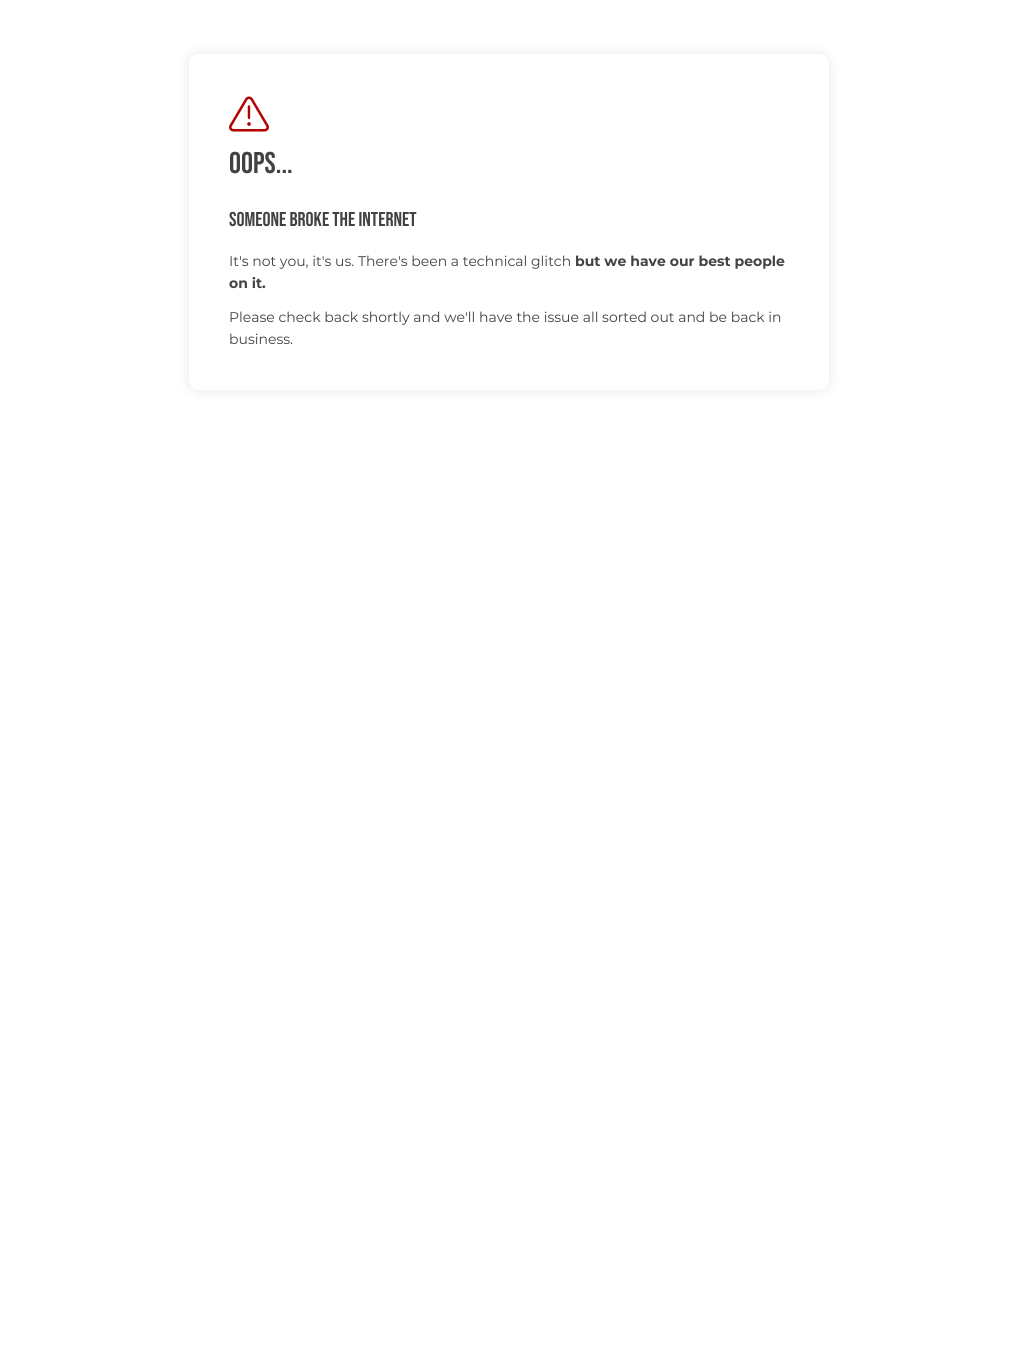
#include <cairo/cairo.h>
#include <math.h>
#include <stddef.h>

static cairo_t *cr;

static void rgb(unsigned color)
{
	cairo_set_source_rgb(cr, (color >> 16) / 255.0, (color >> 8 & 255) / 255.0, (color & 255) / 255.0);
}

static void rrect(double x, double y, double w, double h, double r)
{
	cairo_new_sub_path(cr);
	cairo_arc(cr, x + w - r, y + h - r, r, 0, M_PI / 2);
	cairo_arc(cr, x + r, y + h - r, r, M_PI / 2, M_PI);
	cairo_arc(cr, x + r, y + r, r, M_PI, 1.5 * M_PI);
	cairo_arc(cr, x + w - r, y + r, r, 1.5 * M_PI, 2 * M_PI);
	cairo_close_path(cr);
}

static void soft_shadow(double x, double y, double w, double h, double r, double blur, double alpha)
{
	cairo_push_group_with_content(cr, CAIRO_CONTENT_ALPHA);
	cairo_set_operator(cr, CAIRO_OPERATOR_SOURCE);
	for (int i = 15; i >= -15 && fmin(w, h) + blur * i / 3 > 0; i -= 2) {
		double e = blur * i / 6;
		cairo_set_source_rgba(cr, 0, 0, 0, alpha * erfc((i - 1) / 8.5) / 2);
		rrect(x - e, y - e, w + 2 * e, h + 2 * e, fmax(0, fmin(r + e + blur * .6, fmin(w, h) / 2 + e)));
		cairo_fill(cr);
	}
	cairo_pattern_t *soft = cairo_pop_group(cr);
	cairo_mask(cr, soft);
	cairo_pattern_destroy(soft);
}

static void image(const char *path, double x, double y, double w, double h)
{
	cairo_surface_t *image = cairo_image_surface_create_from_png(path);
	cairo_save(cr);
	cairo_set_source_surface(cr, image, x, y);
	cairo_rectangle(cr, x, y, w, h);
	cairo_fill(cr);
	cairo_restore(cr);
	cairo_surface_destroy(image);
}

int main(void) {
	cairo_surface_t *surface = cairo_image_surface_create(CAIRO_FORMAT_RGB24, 1018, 1353);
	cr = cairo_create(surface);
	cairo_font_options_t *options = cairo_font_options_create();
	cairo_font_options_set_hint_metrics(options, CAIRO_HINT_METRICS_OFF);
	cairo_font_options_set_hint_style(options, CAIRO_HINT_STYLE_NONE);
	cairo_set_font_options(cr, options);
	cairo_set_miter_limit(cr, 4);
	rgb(0xffffff);
	cairo_paint(cr);
	rgb(0x000000);
	soft_shadow(189, 54, 640, 336, 10, 6, 0.1);
	rgb(0xffffff);
	rrect(189, 54, 640, 336, 10);
	cairo_fill(cr);
	image("img/1.png", 229, 96, 40, 36);
	cairo_select_font_face(cr, "Bebas Neue", CAIRO_FONT_SLANT_NORMAL, CAIRO_FONT_WEIGHT_NORMAL);
	cairo_set_font_size(cr, 30);
	rgb(0x424242);
	cairo_move_to(cr, 229, 173);
	cairo_show_text(cr, "Oops...");
	cairo_set_font_size(cr, 20);
	cairo_move_to(cr, 229, 226);
	cairo_show_text(cr, "Someone broke the internet");
	cairo_select_font_face(cr, "Montserrat", CAIRO_FONT_SLANT_NORMAL, CAIRO_FONT_WEIGHT_NORMAL);
	cairo_set_font_size(cr, 14);
	cairo_move_to(cr, 229, 266);
	cairo_show_text(cr, "It's not you, it's us. There's been a technical glitch");
	cairo_select_font_face(cr, "Montserrat", CAIRO_FONT_SLANT_NORMAL, CAIRO_FONT_WEIGHT_BOLD);
	cairo_move_to(cr, 575, 266);
	cairo_show_text(cr, "but we have our best people");
	cairo_move_to(cr, 229, 288);
	cairo_show_text(cr, "on it.");
	cairo_select_font_face(cr, "Montserrat", CAIRO_FONT_SLANT_NORMAL, CAIRO_FONT_WEIGHT_NORMAL);
	cairo_move_to(cr, 229, 322);
	cairo_show_text(cr, "Please check back shortly and we'll have the issue all sorted out and be back in");
	cairo_move_to(cr, 229, 344);
	cairo_show_text(cr, "business.");
	cairo_surface_write_to_png(surface, "page.png");
	cairo_font_options_destroy(options);
	cairo_destroy(cr);
	cairo_surface_destroy(surface);
	return 0;
}
